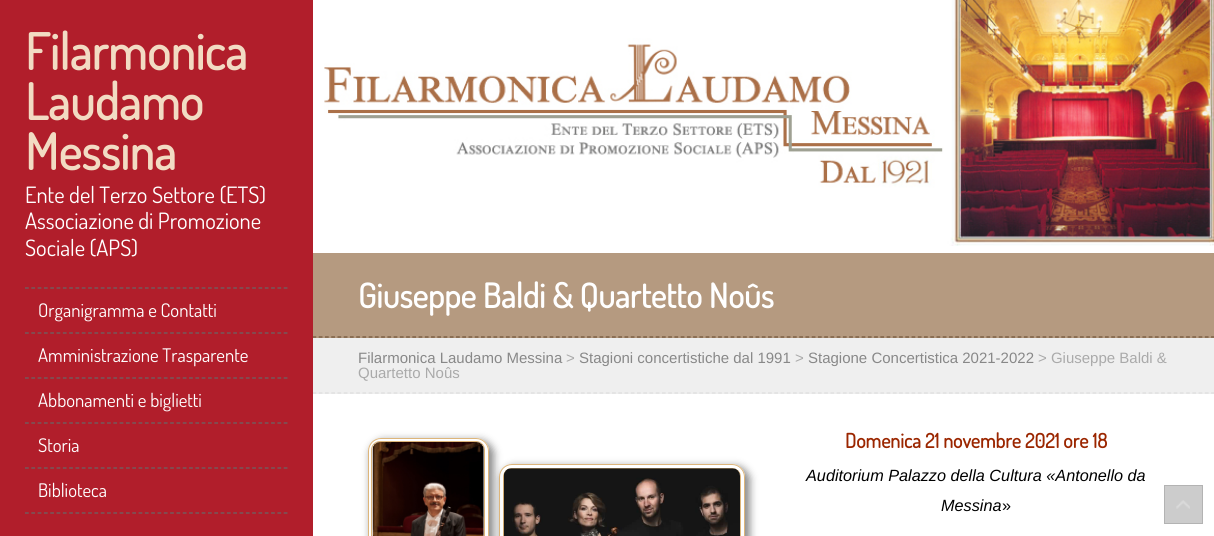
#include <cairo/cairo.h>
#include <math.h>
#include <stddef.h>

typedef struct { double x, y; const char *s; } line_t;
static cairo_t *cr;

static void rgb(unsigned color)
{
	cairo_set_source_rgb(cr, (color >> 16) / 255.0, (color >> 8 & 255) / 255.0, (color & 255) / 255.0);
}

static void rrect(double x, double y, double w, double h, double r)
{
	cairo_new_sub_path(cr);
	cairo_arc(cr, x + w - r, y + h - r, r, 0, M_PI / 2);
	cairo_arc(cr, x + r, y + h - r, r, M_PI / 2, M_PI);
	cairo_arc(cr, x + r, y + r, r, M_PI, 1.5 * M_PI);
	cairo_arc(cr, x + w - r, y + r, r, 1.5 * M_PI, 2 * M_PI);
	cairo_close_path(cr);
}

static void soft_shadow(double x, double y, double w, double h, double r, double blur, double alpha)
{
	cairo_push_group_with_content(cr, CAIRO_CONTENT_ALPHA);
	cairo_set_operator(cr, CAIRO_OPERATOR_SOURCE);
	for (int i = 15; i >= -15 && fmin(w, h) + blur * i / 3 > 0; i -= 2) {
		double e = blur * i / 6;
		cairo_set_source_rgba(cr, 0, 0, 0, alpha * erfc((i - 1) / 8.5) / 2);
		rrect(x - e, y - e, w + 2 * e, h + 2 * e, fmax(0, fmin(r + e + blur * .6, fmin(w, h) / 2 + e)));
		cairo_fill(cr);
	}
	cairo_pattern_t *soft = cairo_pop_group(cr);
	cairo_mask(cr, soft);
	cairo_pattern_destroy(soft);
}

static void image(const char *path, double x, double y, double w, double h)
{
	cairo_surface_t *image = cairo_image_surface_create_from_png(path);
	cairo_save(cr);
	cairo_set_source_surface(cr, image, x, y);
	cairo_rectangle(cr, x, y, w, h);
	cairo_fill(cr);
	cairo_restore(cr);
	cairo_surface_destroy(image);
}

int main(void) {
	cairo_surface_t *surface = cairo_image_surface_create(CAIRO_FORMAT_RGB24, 1214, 536);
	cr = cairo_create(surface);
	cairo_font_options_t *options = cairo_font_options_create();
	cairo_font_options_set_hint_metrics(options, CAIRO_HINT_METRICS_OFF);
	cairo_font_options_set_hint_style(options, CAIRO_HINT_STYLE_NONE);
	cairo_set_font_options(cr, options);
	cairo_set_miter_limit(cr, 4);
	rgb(0xffffff);
	cairo_paint(cr);
	rgb(0xb59a80);
	cairo_rectangle(cr, 313, 253, 901, 85);
	cairo_fill(cr);
	cairo_new_path(cr);
	cairo_move_to(cr, 312.5, 337);
	cairo_line_to(cr, 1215, 337);
	rgb(0x6f5236);
	cairo_set_line_width(cr, 1.2);
	cairo_set_dash(cr, (double[]){3.75, 2.49}, 2, 0);
	cairo_stroke(cr);
	rgb(0xefefef);
	cairo_rectangle(cr, 313, 338, 901, 56);
	cairo_fill(cr);
	cairo_new_path(cr);
	cairo_move_to(cr, 312.5, 393);
	cairo_line_to(cr, 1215, 393);
	rgb(0xdddddd);
	cairo_stroke(cr);
	rgb(0xb11e2b);
	cairo_rectangle(cr, 0, 0, 313, 536);
	cairo_fill(cr);
	cairo_new_path(cr);
	cairo_move_to(cr, 25, 288);
	cairo_line_to(cr, 287.5, 288);
	rgb(0x666666);
	cairo_set_dash(cr, (double[]){3.75, 2.56}, 2, 0);
	cairo_stroke(cr);
	cairo_new_path(cr);
	cairo_move_to(cr, 25, 333);
	cairo_line_to(cr, 287.5, 333);
	cairo_stroke(cr);
	cairo_new_path(cr);
	cairo_move_to(cr, 25, 378);
	cairo_line_to(cr, 287.5, 378);
	cairo_stroke(cr);
	cairo_new_path(cr);
	cairo_move_to(cr, 25, 423);
	cairo_line_to(cr, 287.5, 423);
	cairo_stroke(cr);
	cairo_new_path(cr);
	cairo_move_to(cr, 25, 468);
	cairo_line_to(cr, 287.5, 468);
	cairo_stroke(cr);
	cairo_new_path(cr);
	cairo_move_to(cr, 25, 513);
	cairo_line_to(cr, 287.5, 513);
	cairo_stroke(cr);
	image("img/1.png", 324, 0, 890, 246);
	cairo_save(cr);
	cairo_set_fill_rule(cr, CAIRO_FILL_RULE_EVEN_ODD);
	cairo_new_path(cr);
	cairo_move_to(cr, 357, 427);
	cairo_line_to(cr, 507, 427);
	cairo_line_to(cr, 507, 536);
	cairo_line_to(cr, 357, 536);
	cairo_close_path(cr);
	cairo_move_to(cr, 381, 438);
	cairo_line_to(cr, 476, 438);
	cairo_curve_to(cr, 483, 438, 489, 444, 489, 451);
	cairo_line_to(cr, 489, 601);
	cairo_curve_to(cr, 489, 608, 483, 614, 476, 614);
	cairo_line_to(cr, 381, 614);
	cairo_curve_to(cr, 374, 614, 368, 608, 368, 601);
	cairo_line_to(cr, 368, 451);
	cairo_curve_to(cr, 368, 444, 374, 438, 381, 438);
	cairo_close_path(cr);
	cairo_clip(cr);
	rgb(0x8c8c8c);
	soft_shadow(370, 440, 124, 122, 14, 4, 1);
	cairo_restore(cr);
	rrect(368.5, 438.5, 120, 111, 12.5);
	rgb(0xddb57a);
	cairo_set_line_width(cr, 1);
	cairo_set_dash(cr, NULL, 0, 0);
	cairo_stroke(cr);
	rrect(371.5, 441.5, 113, 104, 8.5);
	cairo_stroke(cr);
	image("img/2.png", 372, 442, 112, 94);
	cairo_save(cr);
	cairo_set_fill_rule(cr, CAIRO_FILL_RULE_EVEN_ODD);
	cairo_new_path(cr);
	cairo_move_to(cr, 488, 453);
	cairo_line_to(cr, 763, 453);
	cairo_line_to(cr, 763, 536);
	cairo_line_to(cr, 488, 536);
	cairo_close_path(cr);
	cairo_move_to(cr, 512, 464);
	cairo_line_to(cr, 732, 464);
	cairo_curve_to(cr, 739, 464, 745, 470, 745, 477);
	cairo_line_to(cr, 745, 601);
	cairo_curve_to(cr, 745, 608, 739, 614, 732, 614);
	cairo_line_to(cr, 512, 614);
	cairo_curve_to(cr, 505, 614, 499, 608, 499, 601);
	cairo_line_to(cr, 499, 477);
	cairo_curve_to(cr, 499, 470, 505, 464, 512, 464);
	cairo_close_path(cr);
	cairo_clip(cr);
	rgb(0x8c8c8c);
	soft_shadow(501, 466, 249, 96, 14, 4, 1);
	cairo_restore(cr);
	rrect(499.5, 464.5, 245, 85, 12.5);
	cairo_stroke(cr);
	rrect(503.5, 468.5, 237, 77, 8.5);
	cairo_stroke(cr);
	image("img/3.png", 503, 468, 237, 68);
	rgb(0xcccccc);
	cairo_rectangle(cr, 1165, 486, 37, 37);
	cairo_fill(cr);
	image("img/4.png", 1176, 500, 14, 9);
	cairo_rectangle(cr, 1164.5, 485.5, 38, 38);
	rgb(0xb3b3b3);
	cairo_stroke(cr);
	cairo_select_font_face(cr, "Dosis", CAIRO_FONT_SLANT_NORMAL, CAIRO_FONT_WEIGHT_BOLD);
	cairo_set_font_size(cr, 50);
	rgb(0xf2dbc3);
	{
		static const line_t items[] = {
			{25, 70, "Filarmonica"},
			{25, 120, "Laudamo"},
			{25, 170, "Messina"},
		};
		for (size_t i = 0; i < sizeof items / sizeof *items; i++) {
			cairo_move_to(cr, items[i].x, items[i].y);
			cairo_show_text(cr, items[i].s);
		}
	}
	cairo_select_font_face(cr, "Dosis", CAIRO_FONT_SLANT_NORMAL, CAIRO_FONT_WEIGHT_NORMAL);
	cairo_set_font_size(cr, 22.5);
	rgb(0xffffff);
	{
		static const line_t items[] = {
			{25, 203, "Ente del Terzo Settore (ETS)"},
			{25, 229, "Associazione di Promozione"},
			{25, 256, "Sociale (APS)"},
		};
		for (size_t i = 0; i < sizeof items / sizeof *items; i++) {
			cairo_move_to(cr, items[i].x, items[i].y);
			cairo_show_text(cr, items[i].s);
		}
	}
	cairo_set_font_size(cr, 18.75);
	{
		static const line_t items[] = {
			{38, 317, "Organigramma e Contatti"},
			{38, 362, "Amministrazione Trasparente"},
			{38, 407, "Abbonamenti e biglietti"},
			{38, 452, "Storia"},
			{38, 497, "Biblioteca"},
		};
		for (size_t i = 0; i < sizeof items / sizeof *items; i++) {
			cairo_move_to(cr, items[i].x, items[i].y);
			cairo_show_text(cr, items[i].s);
		}
	}
	cairo_select_font_face(cr, "Dosis", CAIRO_FONT_SLANT_NORMAL, CAIRO_FONT_WEIGHT_BOLD);
	cairo_set_font_size(cr, 33.75);
	cairo_move_to(cr, 358, 308);
	cairo_show_text(cr, "Giuseppe Baldi & Quartetto Noûs");
	cairo_select_font_face(cr, "Liberation Sans", CAIRO_FONT_SLANT_NORMAL, CAIRO_FONT_WEIGHT_NORMAL);
	cairo_set_font_size(cr, 15);
	rgb(0x888888);
	cairo_move_to(cr, 358, 363);
	cairo_show_text(cr, "Filarmonica Laudamo Messina");
	rgb(0xaaaaaa);
	cairo_move_to(cr, 566, 363);
	cairo_show_text(cr, ">");
	rgb(0x888888);
	cairo_move_to(cr, 579, 363);
	cairo_show_text(cr, "Stagioni concertistiche dal 1991");
	rgb(0xaaaaaa);
	cairo_move_to(cr, 795, 363);
	cairo_show_text(cr, ">");
	rgb(0x888888);
	cairo_move_to(cr, 808, 363);
	cairo_show_text(cr, "Stagione Concertistica 2021-2022");
	rgb(0xaaaaaa);
	cairo_move_to(cr, 1038, 363);
	cairo_show_text(cr, "> Giuseppe Baldi &");
	cairo_move_to(cr, 358, 378);
	cairo_show_text(cr, "Quartetto Noûs");
	cairo_select_font_face(cr, "Dosis", CAIRO_FONT_SLANT_NORMAL, CAIRO_FONT_WEIGHT_BOLD);
	cairo_set_font_size(cr, 20);
	rgb(0x9b2600);
	cairo_move_to(cr, 845, 448);
	cairo_show_text(cr, "Domenica 21 novembre 2021 ore 18");
	cairo_select_font_face(cr, "Liberation Sans", CAIRO_FONT_SLANT_ITALIC, CAIRO_FONT_WEIGHT_NORMAL);
	cairo_set_font_size(cr, 16.25);
	rgb(0x000000);
	cairo_move_to(cr, 806, 481);
	cairo_show_text(cr, "Auditorium Palazzo della Cultura «Antonello da");
	cairo_move_to(cr, 941, 511);
	cairo_show_text(cr, "Messina");
	cairo_select_font_face(cr, "Liberation Sans", CAIRO_FONT_SLANT_NORMAL, CAIRO_FONT_WEIGHT_NORMAL);
	cairo_move_to(cr, 1002, 511);
	cairo_show_text(cr, "»");
	cairo_surface_write_to_png(surface, "page.png");
	cairo_font_options_destroy(options);
	cairo_destroy(cr);
	cairo_surface_destroy(surface);
	return 0;
}
